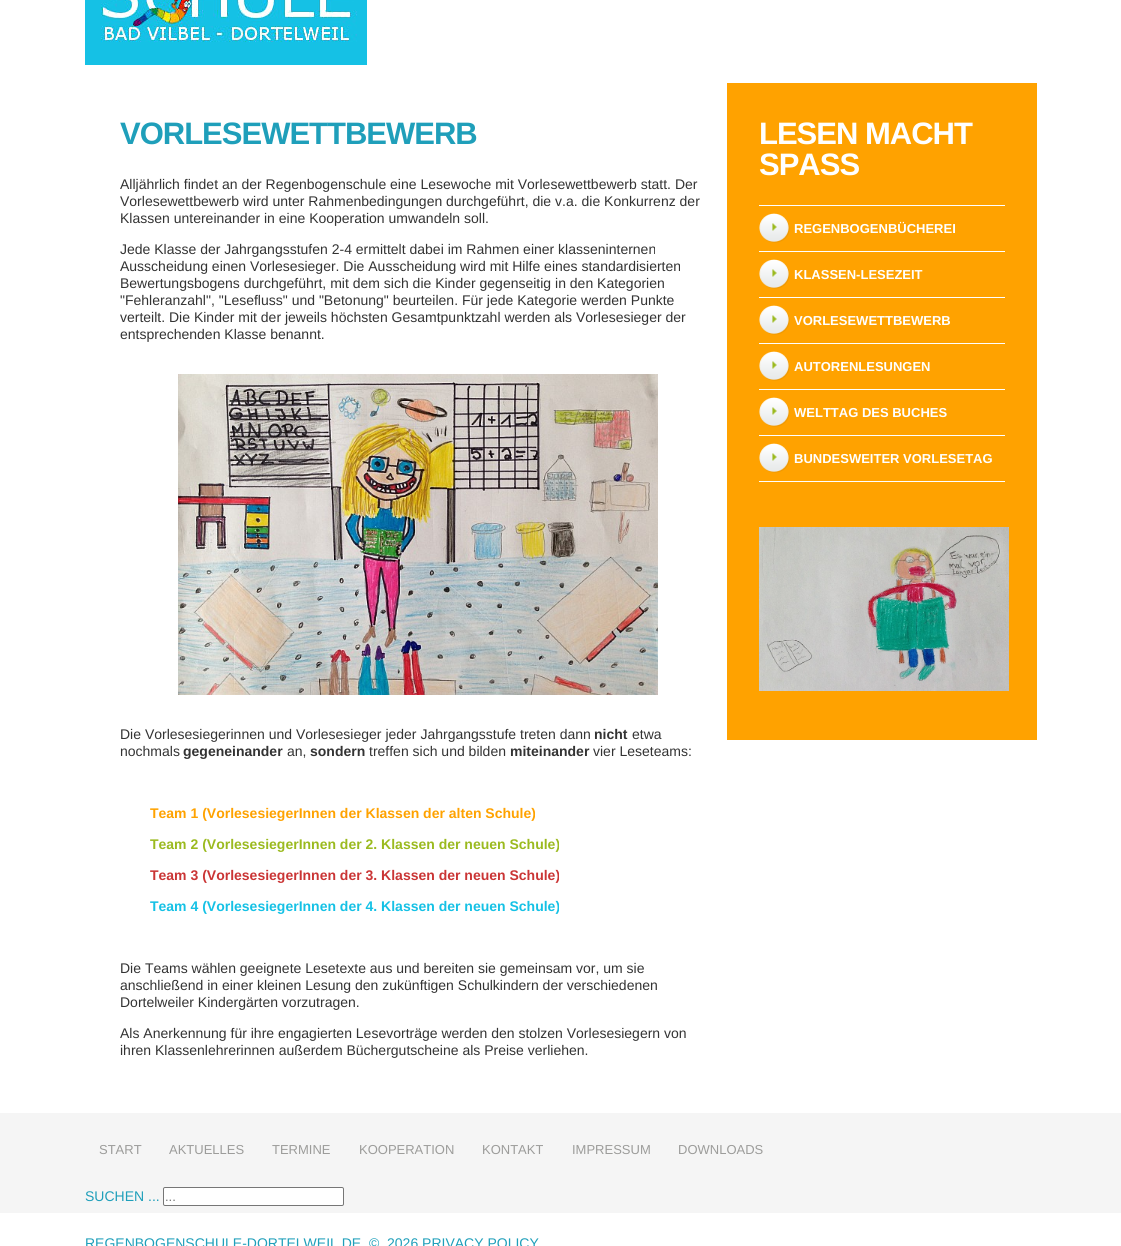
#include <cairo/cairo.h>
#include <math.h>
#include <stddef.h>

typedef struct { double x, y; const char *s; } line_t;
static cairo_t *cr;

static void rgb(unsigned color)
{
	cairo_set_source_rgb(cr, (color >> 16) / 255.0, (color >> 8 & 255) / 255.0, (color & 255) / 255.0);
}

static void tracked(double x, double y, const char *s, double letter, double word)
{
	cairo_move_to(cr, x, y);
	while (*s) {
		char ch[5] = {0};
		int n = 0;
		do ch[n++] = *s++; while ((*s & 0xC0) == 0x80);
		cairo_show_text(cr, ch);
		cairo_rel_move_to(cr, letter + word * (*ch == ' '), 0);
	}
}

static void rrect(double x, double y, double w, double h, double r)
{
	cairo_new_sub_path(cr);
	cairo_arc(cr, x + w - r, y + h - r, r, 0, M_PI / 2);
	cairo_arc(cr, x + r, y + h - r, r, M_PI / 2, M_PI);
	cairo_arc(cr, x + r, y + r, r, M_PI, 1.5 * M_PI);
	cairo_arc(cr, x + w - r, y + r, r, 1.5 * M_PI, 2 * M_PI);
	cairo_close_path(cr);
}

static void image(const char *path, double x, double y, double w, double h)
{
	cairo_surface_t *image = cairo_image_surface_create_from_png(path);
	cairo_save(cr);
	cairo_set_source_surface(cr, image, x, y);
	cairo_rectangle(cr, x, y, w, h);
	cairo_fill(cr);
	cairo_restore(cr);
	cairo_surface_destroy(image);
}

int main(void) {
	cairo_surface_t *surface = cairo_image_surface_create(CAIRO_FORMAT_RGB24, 1121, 1246);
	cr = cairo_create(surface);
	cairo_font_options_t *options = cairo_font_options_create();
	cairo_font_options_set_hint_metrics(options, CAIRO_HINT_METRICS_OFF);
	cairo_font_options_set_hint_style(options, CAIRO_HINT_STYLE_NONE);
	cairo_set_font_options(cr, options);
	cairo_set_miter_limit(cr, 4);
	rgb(0xffffff);
	cairo_paint(cr);
	image("img/1.png", 85, 0, 282, 65);
	image("img/2.png", 178, 374, 480, 321);
	rgb(0xffa200);
	cairo_rectangle(cr, 727, 83, 310, 657);
	cairo_fill(cr);
	rgb(0xffffff);
	cairo_rectangle(cr, 759, 481, 246, 1);
	cairo_fill(cr);
	image("img/3.png", 759, 213, 31, 30);
	cairo_rectangle(cr, 759, 205, 246, 1);
	cairo_fill(cr);
	image("img/3.png", 759, 259, 31, 30);
	cairo_rectangle(cr, 759, 251, 246, 1);
	cairo_fill(cr);
	image("img/3.png", 759, 305, 31, 30);
	cairo_rectangle(cr, 759, 297, 246, 1);
	cairo_fill(cr);
	image("img/3.png", 759, 351, 31, 30);
	cairo_rectangle(cr, 759, 343, 246, 1);
	cairo_fill(cr);
	image("img/3.png", 759, 397, 31, 30);
	cairo_rectangle(cr, 759, 389, 246, 1);
	cairo_fill(cr);
	image("img/3.png", 759, 443, 31, 30);
	cairo_rectangle(cr, 759, 435, 246, 1);
	cairo_fill(cr);
	image("img/4.png", 759, 527, 250, 164);
	rgb(0xf5f5f5);
	cairo_rectangle(cr, 0, 1113, 1121, 100);
	cairo_fill(cr);
	rgb(0xffffff);
	rrect(163.5, 1187.5, 180, 18, 1.5);
	cairo_fill_preserve(cr);
	rgb(0x767676);
	cairo_set_line_width(cr, 1);
	cairo_stroke(cr);
	cairo_select_font_face(cr, "Liberation Sans", CAIRO_FONT_SLANT_NORMAL, CAIRO_FONT_WEIGHT_BOLD);
	cairo_set_font_size(cr, 31);
	rgb(0x1f9fba);
	tracked(120, 144, "VORLESEWETTBEWERB", -1, 0);
	cairo_select_font_face(cr, "Liberation Sans", CAIRO_FONT_SLANT_NORMAL, CAIRO_FONT_WEIGHT_NORMAL);
	cairo_set_font_size(cr, 14);
	rgb(0x333333);
	{
		static const line_t items[] = {
			{120, 189, "Alljährlich findet an der Regenbogenschule eine Lesewoche mit Vorlesewettbewerb statt. Der"},
			{120, 206, "Vorlesewettbewerb wird unter Rahmenbedingungen durchgeführt, die v.a. die Konkurrenz der"},
			{120, 223, "Klassen untereinander in eine Kooperation umwandeln soll."},
			{120, 254, "Jede Klasse der Jahrgangsstufen 2-4 ermittelt dabei im Rahmen einer klasseninternen"},
			{120, 271, "Ausscheidung einen Vorlesesieger. Die Ausscheidung wird mit Hilfe eines standardisierten"},
			{120, 288, "Bewertungsbogens durchgeführt, mit dem sich die Kinder gegenseitig in den Kategorien"},
			{120, 305, "\"Fehleranzahl\", \"Lesefluss\" und \"Betonung\" beurteilen. Für jede Kategorie werden Punkte"},
			{120, 322, "verteilt. Die Kinder mit der jeweils höchsten Gesamtpunktzahl werden als Vorlesesieger der"},
			{120, 339, "entsprechenden Klasse benannt."},
			{120, 739, "Die Vorlesesiegerinnen und Vorlesesieger jeder Jahrgangsstufe treten dann"},
		};
		for (size_t i = 0; i < sizeof items / sizeof *items; i++) {
			cairo_move_to(cr, items[i].x, items[i].y);
			cairo_show_text(cr, items[i].s);
		}
	}
	cairo_select_font_face(cr, "Liberation Sans", CAIRO_FONT_SLANT_NORMAL, CAIRO_FONT_WEIGHT_BOLD);
	cairo_move_to(cr, 594, 739);
	cairo_show_text(cr, "nicht");
	cairo_select_font_face(cr, "Liberation Sans", CAIRO_FONT_SLANT_NORMAL, CAIRO_FONT_WEIGHT_NORMAL);
	cairo_move_to(cr, 632, 739);
	cairo_show_text(cr, "etwa");
	cairo_move_to(cr, 120, 756);
	cairo_show_text(cr, "nochmals");
	cairo_select_font_face(cr, "Liberation Sans", CAIRO_FONT_SLANT_NORMAL, CAIRO_FONT_WEIGHT_BOLD);
	cairo_move_to(cr, 183, 756);
	cairo_show_text(cr, "gegeneinander");
	cairo_select_font_face(cr, "Liberation Sans", CAIRO_FONT_SLANT_NORMAL, CAIRO_FONT_WEIGHT_NORMAL);
	cairo_move_to(cr, 287, 756);
	cairo_show_text(cr, "an,");
	cairo_select_font_face(cr, "Liberation Sans", CAIRO_FONT_SLANT_NORMAL, CAIRO_FONT_WEIGHT_BOLD);
	cairo_move_to(cr, 310, 756);
	cairo_show_text(cr, "sondern");
	cairo_select_font_face(cr, "Liberation Sans", CAIRO_FONT_SLANT_NORMAL, CAIRO_FONT_WEIGHT_NORMAL);
	cairo_move_to(cr, 369, 756);
	cairo_show_text(cr, "treffen sich und bilden");
	cairo_select_font_face(cr, "Liberation Sans", CAIRO_FONT_SLANT_NORMAL, CAIRO_FONT_WEIGHT_BOLD);
	cairo_move_to(cr, 510, 756);
	cairo_show_text(cr, "miteinander");
	cairo_select_font_face(cr, "Liberation Sans", CAIRO_FONT_SLANT_NORMAL, CAIRO_FONT_WEIGHT_NORMAL);
	cairo_move_to(cr, 593, 756);
	cairo_show_text(cr, "vier Leseteams:");
	cairo_select_font_face(cr, "Liberation Sans", CAIRO_FONT_SLANT_NORMAL, CAIRO_FONT_WEIGHT_BOLD);
	rgb(0xffa200);
	cairo_move_to(cr, 150, 818);
	cairo_show_text(cr, "Team 1 (VorlesesiegerInnen der Klassen der alten Schule)");
	rgb(0x9bba1f);
	cairo_move_to(cr, 150, 849);
	cairo_show_text(cr, "Team 2 (VorlesesiegerInnen der 2. Klassen der neuen Schule)");
	rgb(0xca3535);
	cairo_move_to(cr, 150, 880);
	cairo_show_text(cr, "Team 3 (VorlesesiegerInnen der 3. Klassen der neuen Schule)");
	rgb(0x15c1e5);
	cairo_move_to(cr, 150, 911);
	cairo_show_text(cr, "Team 4 (VorlesesiegerInnen der 4. Klassen der neuen Schule)");
	cairo_select_font_face(cr, "Liberation Sans", CAIRO_FONT_SLANT_NORMAL, CAIRO_FONT_WEIGHT_NORMAL);
	rgb(0x333333);
	{
		static const line_t items[] = {
			{120, 973, "Die Teams wählen geeignete Lesetexte aus und bereiten sie gemeinsam vor, um sie"},
			{120, 990, "anschließend in einer kleinen Lesung den zukünftigen Schulkindern der verschiedenen"},
			{120, 1007, "Dortelweiler Kindergärten vorzutragen."},
			{120, 1038, "Als Anerkennung für ihre engagierten Lesevorträge werden den stolzen Vorlesesiegern von"},
			{120, 1055, "ihren Klassenlehrerinnen außerdem Büchergutscheine als Preise verliehen."},
		};
		for (size_t i = 0; i < sizeof items / sizeof *items; i++) {
			cairo_move_to(cr, items[i].x, items[i].y);
			cairo_show_text(cr, items[i].s);
		}
	}
	cairo_select_font_face(cr, "Liberation Sans", CAIRO_FONT_SLANT_NORMAL, CAIRO_FONT_WEIGHT_BOLD);
	cairo_set_font_size(cr, 31);
	rgb(0xffffff);
	tracked(759, 144, "LESEN MACHT", -1, 0);
	tracked(759, 175, "SPASS", -1, 0);
	cairo_set_font_size(cr, 13);
	{
		static const line_t items[] = {
			{794, 233, "REGENBOGENBÜCHEREI"},
			{794, 279, "KLASSEN-LESEZEIT"},
			{794, 325, "VORLESEWETTBEWERB"},
			{794, 371, "AUTORENLESUNGEN"},
			{794, 417, "WELTTAG DES BUCHES"},
			{794, 463, "BUNDESWEITER VORLESETAG"},
		};
		for (size_t i = 0; i < sizeof items / sizeof *items; i++) {
			cairo_move_to(cr, items[i].x, items[i].y);
			cairo_show_text(cr, items[i].s);
		}
	}
	cairo_select_font_face(cr, "Liberation Sans", CAIRO_FONT_SLANT_NORMAL, CAIRO_FONT_WEIGHT_NORMAL);
	rgb(0x9c9c9a);
	{
		static const line_t items[] = {
			{99, 1154, "START"},
			{169, 1154, "AKTUELLES"},
			{272, 1154, "TERMINE"},
			{359, 1154, "KOOPERATION"},
			{482, 1154, "KONTAKT"},
			{572, 1154, "IMPRESSUM"},
			{678, 1154, "DOWNLOADS"},
		};
		for (size_t i = 0; i < sizeof items / sizeof *items; i++) {
			cairo_move_to(cr, items[i].x, items[i].y);
			cairo_show_text(cr, items[i].s);
		}
	}
	cairo_set_font_size(cr, 14);
	rgb(0x1f9fba);
	cairo_move_to(cr, 85, 1201);
	cairo_show_text(cr, "SUCHEN ...");
	cairo_set_font_size(cr, 13);
	rgb(0x757575);
	cairo_move_to(cr, 165, 1201);
	cairo_show_text(cr, "...");
	cairo_set_font_size(cr, 14);
	rgb(0x1f9fba);
	cairo_move_to(cr, 85, 1248);
	cairo_show_text(cr, "REGENBOGENSCHULE-DORTELWEIL.DE  ©  2026 PRIVACY POLICY");
	cairo_surface_write_to_png(surface, "page.png");
	cairo_font_options_destroy(options);
	cairo_destroy(cr);
	cairo_surface_destroy(surface);
	return 0;
}
